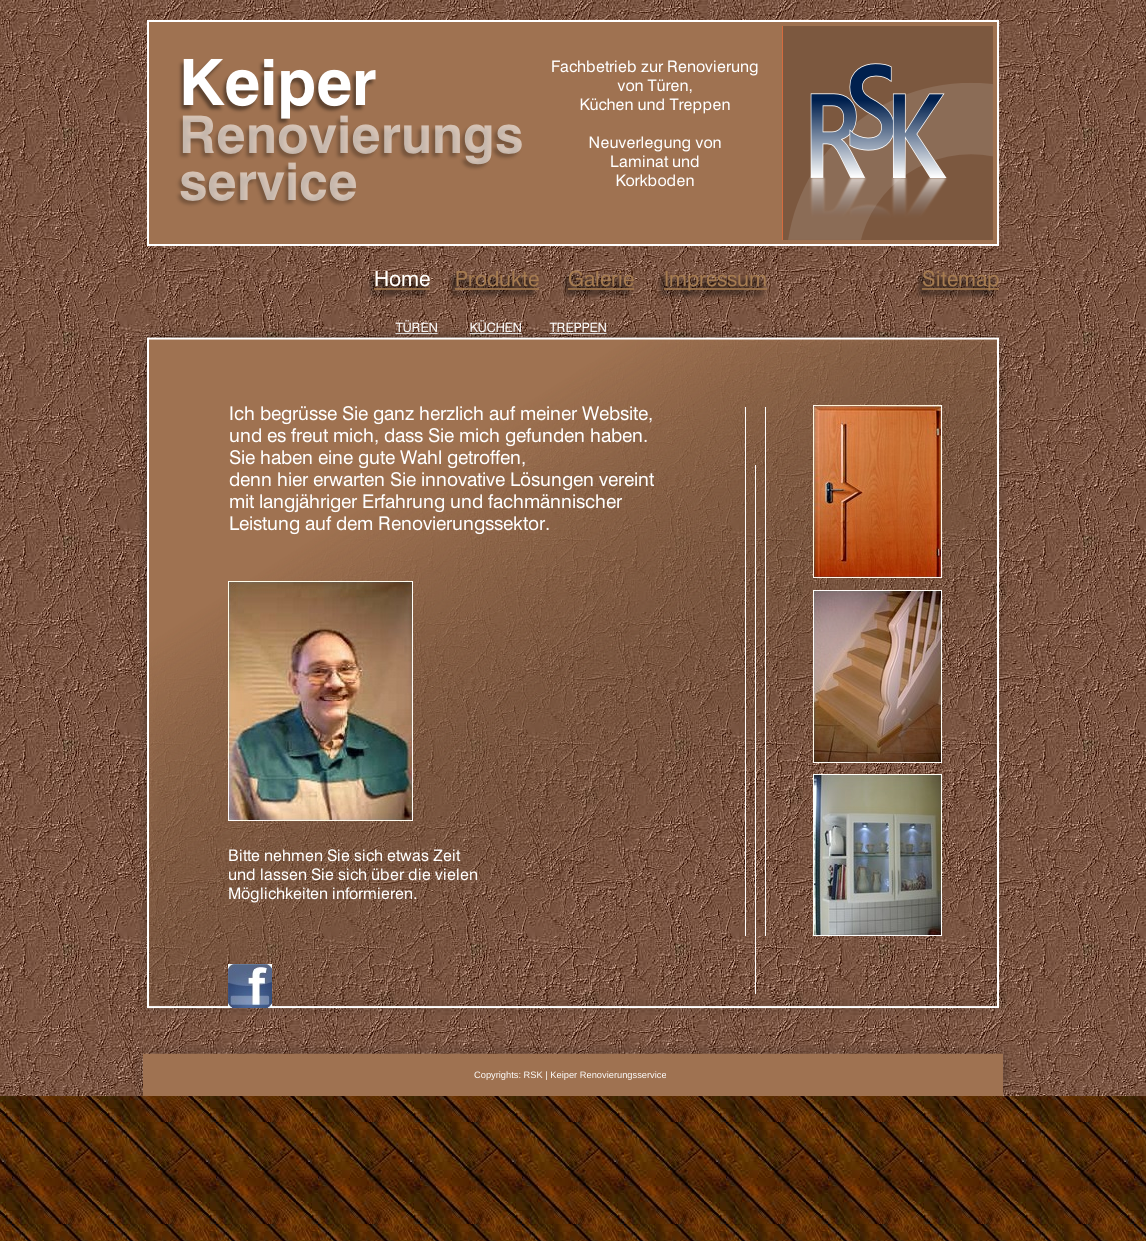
#include <cairo/cairo.h>
#include <math.h>
#include <stddef.h>

typedef struct { double x, y, w, h; unsigned color; } box_t;
static cairo_t *cr;

static void rgb(unsigned color)
{
	cairo_set_source_rgb(cr, (color >> 16) / 255.0, (color >> 8 & 255) / 255.0, (color & 255) / 255.0);
}

static void image(const char *path, double x, double y, double w, double h)
{
	cairo_surface_t *image = cairo_image_surface_create_from_png(path);
	cairo_save(cr);
	cairo_set_source_surface(cr, image, x, y);
	cairo_rectangle(cr, x, y, w, h);
	cairo_fill(cr);
	cairo_restore(cr);
	cairo_surface_destroy(image);
}

int main(void) {
	cairo_surface_t *surface = cairo_image_surface_create(CAIRO_FORMAT_RGB24, 1146, 1241);
	cr = cairo_create(surface);
	cairo_font_options_t *options = cairo_font_options_create();
	cairo_font_options_set_hint_metrics(options, CAIRO_HINT_METRICS_OFF);
	cairo_font_options_set_hint_style(options, CAIRO_HINT_STYLE_NONE);
	cairo_set_font_options(cr, options);
	cairo_set_miter_limit(cr, 4);
	rgb(0xffffff);
	cairo_paint(cr);
	image("img/1.png", 0, 1096, 1146, 145);
	image("img/2.png", 0, 0, 1146, 1096);
	image("img/3.png", 147, 20, 852, 226);
	image("img/4.png", 552, 60, 206, 127);
	image("img/5.png", 788, 63, 205, 177);
	image("img/10.png", 367, 271, 63, 28);
	image("img/6.png", 375, 270, 55, 17);
	image("img/7.png", 449, 270, 90, 29);
	image("img/8.png", 561, 270, 73, 29);
	image("img/9.png", 916, 270, 83, 29);
	image("img/11.png", 658, 271, 109, 28);
	image("img/12.png", 138, 320, 869, 695);
	image("img/13.png", 229, 406, 425, 129);
	{
		static const box_t items[] = {
			{745, 407, 1, 529, 0xffffff},
			{755, 465, 1, 529, 0xffffff},
			{765, 407, 1, 529, 0xffffff},
		};
		for (size_t i = 0; i < sizeof items / sizeof *items; i++) {
			rgb(items[i].color);
			cairo_rectangle(cr, items[i].x, items[i].y, items[i].w, items[i].h);
			cairo_fill(cr);
		}
	}
	image("img/14.png", 813, 405, 129, 173);
	image("img/15.png", 228, 581, 185, 240);
	image("img/16.png", 813, 590, 129, 173);
	image("img/17.png", 229, 849, 249, 54);
	image("img/18.png", 813, 774, 129, 162);
	image("img/19.png", 228, 964, 44, 44);
	image("img/20.png", 135, 1045, 876, 51);
	cairo_select_font_face(cr, "Liberation Sans", CAIRO_FONT_SLANT_NORMAL, CAIRO_FONT_WEIGHT_NORMAL);
	cairo_set_font_size(cr, 9.3);
	cairo_move_to(cr, 474, 1078);
	cairo_show_text(cr, "Copyrights: RSK | Keiper Renovierungsservice");
	cairo_surface_write_to_png(surface, "page.png");
	cairo_font_options_destroy(options);
	cairo_destroy(cr);
	cairo_surface_destroy(surface);
	return 0;
}
